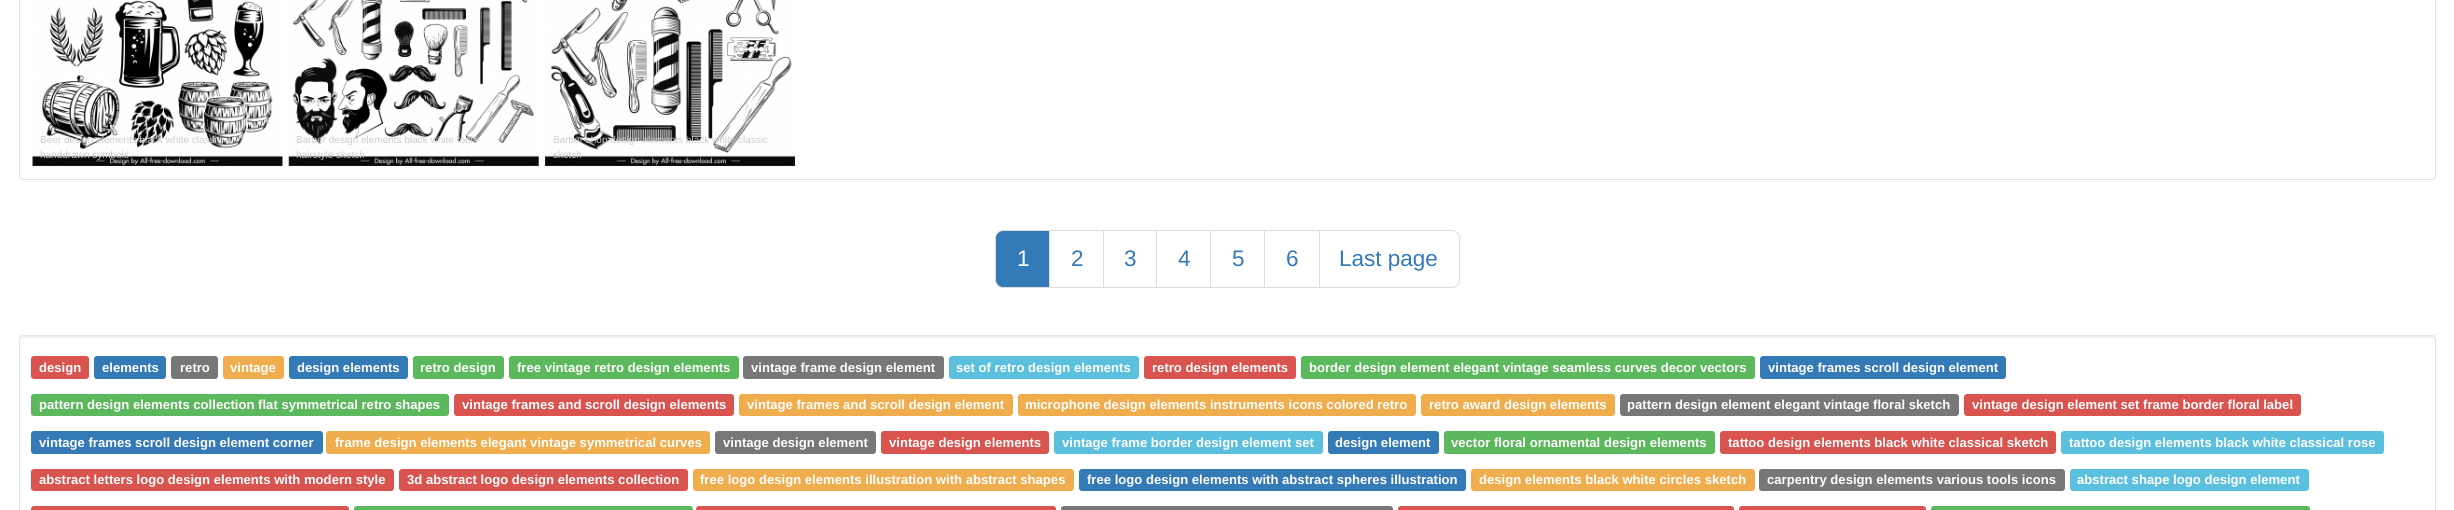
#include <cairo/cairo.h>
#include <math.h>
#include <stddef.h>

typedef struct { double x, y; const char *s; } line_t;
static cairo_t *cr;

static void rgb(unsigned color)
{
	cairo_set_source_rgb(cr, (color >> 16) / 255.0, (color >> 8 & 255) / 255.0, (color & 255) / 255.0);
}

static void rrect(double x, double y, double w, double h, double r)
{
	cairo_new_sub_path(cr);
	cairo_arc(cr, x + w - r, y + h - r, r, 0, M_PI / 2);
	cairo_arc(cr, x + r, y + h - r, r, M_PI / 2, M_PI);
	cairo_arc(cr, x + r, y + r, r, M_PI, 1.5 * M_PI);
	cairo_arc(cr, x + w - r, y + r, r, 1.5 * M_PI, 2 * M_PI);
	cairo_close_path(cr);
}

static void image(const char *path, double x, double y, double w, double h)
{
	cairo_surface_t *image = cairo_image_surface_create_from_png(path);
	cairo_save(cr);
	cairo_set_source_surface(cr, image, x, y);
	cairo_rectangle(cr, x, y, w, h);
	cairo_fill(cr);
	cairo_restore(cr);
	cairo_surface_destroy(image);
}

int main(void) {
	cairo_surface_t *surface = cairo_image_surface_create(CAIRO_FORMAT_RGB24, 2454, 510);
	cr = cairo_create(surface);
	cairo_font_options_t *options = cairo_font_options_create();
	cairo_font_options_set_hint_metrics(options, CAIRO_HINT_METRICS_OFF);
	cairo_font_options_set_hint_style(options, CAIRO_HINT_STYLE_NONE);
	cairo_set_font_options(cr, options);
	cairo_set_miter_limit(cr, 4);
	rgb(0xffffff);
	cairo_paint(cr);
	rrect(19.5, -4.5, 2416, 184, 3.5);
	rgb(0xe3e3e3);
	cairo_set_line_width(cr, 1);
	cairo_stroke(cr);
	image("img/1.png", 32, 0, 251, 166);
	image("img/2.png", 288, 0, 251, 166);
	image("img/3.png", 545, 0, 250, 166);
	rgb(0x337ab7);
	cairo_new_path(cr);
	cairo_move_to(cr, 1003, 230.5);
	cairo_line_to(cr, 1049.5, 230.5);
	cairo_line_to(cr, 1049.5, 287.5);
	cairo_line_to(cr, 1003, 287.5);
	cairo_curve_to(cr, 999, 287.5, 995.5, 284, 995.5, 280);
	cairo_line_to(cr, 995.5, 238);
	cairo_curve_to(cr, 995.5, 234, 999, 230.5, 1003, 230.5);
	cairo_close_path(cr);
	cairo_fill_preserve(cr);
	rgb(0xdddddd);
	cairo_stroke(cr);
	cairo_rectangle(cr, 1049.5, 230.5, 54, 57);
	cairo_stroke(cr);
	cairo_rectangle(cr, 1103.5, 230.5, 54, 57);
	cairo_stroke(cr);
	rgb(0xffffff);
	cairo_rectangle(cr, 1157, 231, 1, 56);
	cairo_fill(cr);
	cairo_rectangle(cr, 1156.5, 230.5, 54, 57);
	rgb(0xdddddd);
	cairo_stroke(cr);
	cairo_rectangle(cr, 1210.5, 230.5, 54, 57);
	cairo_stroke(cr);
	cairo_rectangle(cr, 1264.5, 230.5, 55, 57);
	cairo_stroke(cr);
	rgb(0xffffff);
	cairo_new_path(cr);
	cairo_move_to(cr, 1319.5, 230.5);
	cairo_line_to(cr, 1452, 230.5);
	cairo_curve_to(cr, 1456, 230.5, 1459.5, 234, 1459.5, 238);
	cairo_line_to(cr, 1459.5, 280);
	cairo_curve_to(cr, 1459.5, 284, 1456, 287.5, 1452, 287.5);
	cairo_line_to(cr, 1319.5, 287.5);
	cairo_close_path(cr);
	cairo_fill_preserve(cr);
	rgb(0xdddddd);
	cairo_stroke(cr);
	rgb(0xf2f2f2);
	cairo_new_path(cr);
	cairo_move_to(cr, 22, 338);
	cairo_line_to(cr, 2432, 338);
	cairo_curve_to(cr, 2434, 338, 2435, 339, 2435, 340);
	cairo_line_to(cr, 2435, 338);
	cairo_curve_to(cr, 2435, 337, 2434, 336, 2432, 336);
	cairo_line_to(cr, 22, 336);
	cairo_curve_to(cr, 21, 336, 20, 337, 20, 338);
	cairo_line_to(cr, 20, 340);
	cairo_curve_to(cr, 20, 339, 21, 338, 22, 338);
	cairo_close_path(cr);
	cairo_fill(cr);
	rrect(19.5, 335.5, 2416, 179, 3.5);
	rgb(0xe3e3e3);
	cairo_stroke(cr);
	rgb(0xd9534f);
	rrect(31, 356, 58, 23, 3);
	cairo_fill(cr);
	rgb(0x337ab7);
	rrect(94, 356, 72, 23, 3);
	cairo_fill(cr);
	rgb(0x777777);
	rrect(171, 356, 47, 23, 3);
	cairo_fill(cr);
	rgb(0xf0ad4e);
	rrect(223, 356, 61, 23, 3);
	cairo_fill(cr);
	rgb(0x337ab7);
	rrect(289, 356, 119, 23, 3);
	cairo_fill(cr);
	rgb(0x5cb85c);
	rrect(413, 356, 91, 23, 3);
	cairo_fill(cr);
	rrect(509, 356, 230, 23, 3);
	cairo_fill(cr);
	rgb(0x777777);
	rrect(743, 356, 201, 23, 3);
	cairo_fill(cr);
	rgb(0x5bc0de);
	rrect(949, 356, 190, 23, 3);
	cairo_fill(cr);
	rgb(0xd9534f);
	rrect(1144, 356, 152, 23, 3);
	cairo_fill(cr);
	rgb(0x5cb85c);
	rrect(1301, 356, 454, 23, 3);
	cairo_fill(cr);
	rgb(0x337ab7);
	rrect(1760, 356, 246, 23, 3);
	cairo_fill(cr);
	rgb(0x5cb85c);
	rrect(31, 394, 418, 22, 3);
	cairo_fill(cr);
	rgb(0xd9534f);
	rrect(454, 394, 280, 22, 3);
	cairo_fill(cr);
	rgb(0xf0ad4e);
	rrect(739, 394, 274, 22, 3);
	cairo_fill(cr);
	rrect(1018, 394, 398, 22, 3);
	cairo_fill(cr);
	rrect(1421, 394, 194, 22, 3);
	cairo_fill(cr);
	rgb(0x777777);
	rrect(1620, 394, 339, 22, 3);
	cairo_fill(cr);
	rgb(0xd9534f);
	rrect(1964, 394, 337, 22, 3);
	cairo_fill(cr);
	rgb(0x337ab7);
	rrect(31, 431, 292, 23, 3);
	cairo_fill(cr);
	rgb(0xf0ad4e);
	rrect(326, 431, 384, 23, 3);
	cairo_fill(cr);
	rgb(0x777777);
	rrect(715, 431, 161, 23, 3);
	cairo_fill(cr);
	rgb(0xd9534f);
	rrect(881, 431, 168, 23, 3);
	cairo_fill(cr);
	rgb(0x5bc0de);
	rrect(1054, 431, 269, 23, 3);
	cairo_fill(cr);
	rgb(0x337ab7);
	rrect(1328, 431, 111, 23, 3);
	cairo_fill(cr);
	rgb(0x5cb85c);
	rrect(1444, 431, 271, 23, 3);
	cairo_fill(cr);
	rgb(0xd9534f);
	rrect(1720, 431, 336, 23, 3);
	cairo_fill(cr);
	rgb(0x5bc0de);
	rrect(2061, 431, 323, 23, 3);
	cairo_fill(cr);
	rgb(0xd9534f);
	rrect(31, 469, 363, 22, 3);
	cairo_fill(cr);
	rrect(399, 469, 289, 22, 3);
	cairo_fill(cr);
	rgb(0xf0ad4e);
	rrect(693, 469, 381, 22, 3);
	cairo_fill(cr);
	rgb(0x337ab7);
	rrect(1079, 469, 387, 22, 3);
	cairo_fill(cr);
	rgb(0xf0ad4e);
	rrect(1471, 469, 284, 22, 3);
	cairo_fill(cr);
	rgb(0x777777);
	rrect(1759, 469, 306, 22, 3);
	cairo_fill(cr);
	rgb(0x5bc0de);
	rrect(2070, 469, 239, 22, 3);
	cairo_fill(cr);
	rgb(0xd9534f);
	rrect(31, 506, 318, 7, 3);
	cairo_fill(cr);
	rgb(0x5cb85c);
	rrect(354, 506, 339, 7, 3);
	cairo_fill(cr);
	rgb(0xd9534f);
	rrect(696, 506, 360, 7, 3);
	cairo_fill(cr);
	rgb(0x777777);
	rrect(1061, 506, 332, 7, 3);
	cairo_fill(cr);
	rgb(0xd9534f);
	rrect(1398, 506, 336, 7, 3);
	cairo_fill(cr);
	rrect(1739, 506, 187, 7, 3);
	cairo_fill(cr);
	rgb(0x5cb85c);
	rrect(1931, 506, 379, 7, 3);
	cairo_fill(cr);
	cairo_select_font_face(cr, "Liberation Sans", CAIRO_FONT_SLANT_NORMAL, CAIRO_FONT_WEIGHT_NORMAL);
	cairo_set_font_size(cr, 10);
	rgb(0xcccccc);
	{
		static const line_t items[] = {
			{40, 143, "Beer design elements black white classic"},
			{40, 158, "handdrawn symbols"},
			{296, 143, "Barber design elements black white tools"},
			{296, 158, "hairstyle sketch"},
			{553, 143, "Barber shop design elements black white classic"},
			{553, 158, "sketch"},
		};
		for (size_t i = 0; i < sizeof items / sizeof *items; i++) {
			cairo_move_to(cr, items[i].x, items[i].y);
			cairo_show_text(cr, items[i].s);
		}
	}
	cairo_set_font_size(cr, 22.5);
	rgb(0xffffff);
	cairo_move_to(cr, 1017, 266);
	cairo_show_text(cr, "1");
	rgb(0x337ab7);
	{
		static const line_t items[] = {
			{1071, 266, "2"},
			{1124, 266, "3"},
			{1178, 266, "4"},
			{1232, 266, "5"},
			{1286, 266, "6"},
			{1339, 266, "Last page"},
		};
		for (size_t i = 0; i < sizeof items / sizeof *items; i++) {
			cairo_move_to(cr, items[i].x, items[i].y);
			cairo_show_text(cr, items[i].s);
		}
	}
	cairo_select_font_face(cr, "Liberation Sans", CAIRO_FONT_SLANT_NORMAL, CAIRO_FONT_WEIGHT_BOLD);
	cairo_set_font_size(cr, 13.1);
	rgb(0xffffff);
	{
		static const line_t items[] = {
			{39, 372, "design"},
			{102, 372, "elements"},
			{180, 372, "retro"},
			{230, 372, "vintage"},
			{297, 372, "design elements"},
			{420, 372, "retro design"},
			{517, 372, "free vintage retro design elements"},
			{751, 372, "vintage frame design element"},
			{956, 372, "set of retro design elements"},
			{1152, 372, "retro design elements"},
			{1309, 372, "border design element elegant vintage seamless curves decor vectors"},
			{1768, 372, "vintage frames scroll design element"},
			{39, 409, "pattern design elements collection flat symmetrical retro shapes"},
			{462, 409, "vintage frames and scroll design elements"},
			{747, 409, "vintage frames and scroll design element"},
			{1025, 409, "microphone design elements instruments icons colored retro"},
			{1429, 409, "retro award design elements"},
			{1627, 409, "pattern design element elegant vintage floral sketch"},
			{1972, 409, "vintage design element set frame border floral label"},
			{39, 447, "vintage frames scroll design element corner"},
			{335, 447, "frame design elements elegant vintage symmetrical curves"},
			{723, 447, "vintage design element"},
			{889, 447, "vintage design elements"},
			{1062, 447, "vintage frame border design element set"},
			{1335, 447, "design element"},
			{1451, 447, "vector floral ornamental design elements"},
			{1728, 447, "tattoo design elements black white classical sketch"},
			{2069, 447, "tattoo design elements black white classical rose"},
			{39, 484, "abstract letters logo design elements with modern style"},
			{407, 484, "3d abstract logo design elements collection"},
			{700, 484, "free logo design elements illustration with abstract shapes"},
			{1087, 484, "free logo design elements with abstract spheres illustration"},
			{1479, 484, "design elements black white circles sketch"},
			{1767, 484, "carpentry design elements various tools icons"},
			{2077, 484, "abstract shape logo design element"},
		};
		for (size_t i = 0; i < sizeof items / sizeof *items; i++) {
			cairo_move_to(cr, items[i].x, items[i].y);
			cairo_show_text(cr, items[i].s);
		}
	}
	cairo_surface_write_to_png(surface, "page.png");
	cairo_font_options_destroy(options);
	cairo_destroy(cr);
	cairo_surface_destroy(surface);
	return 0;
}
